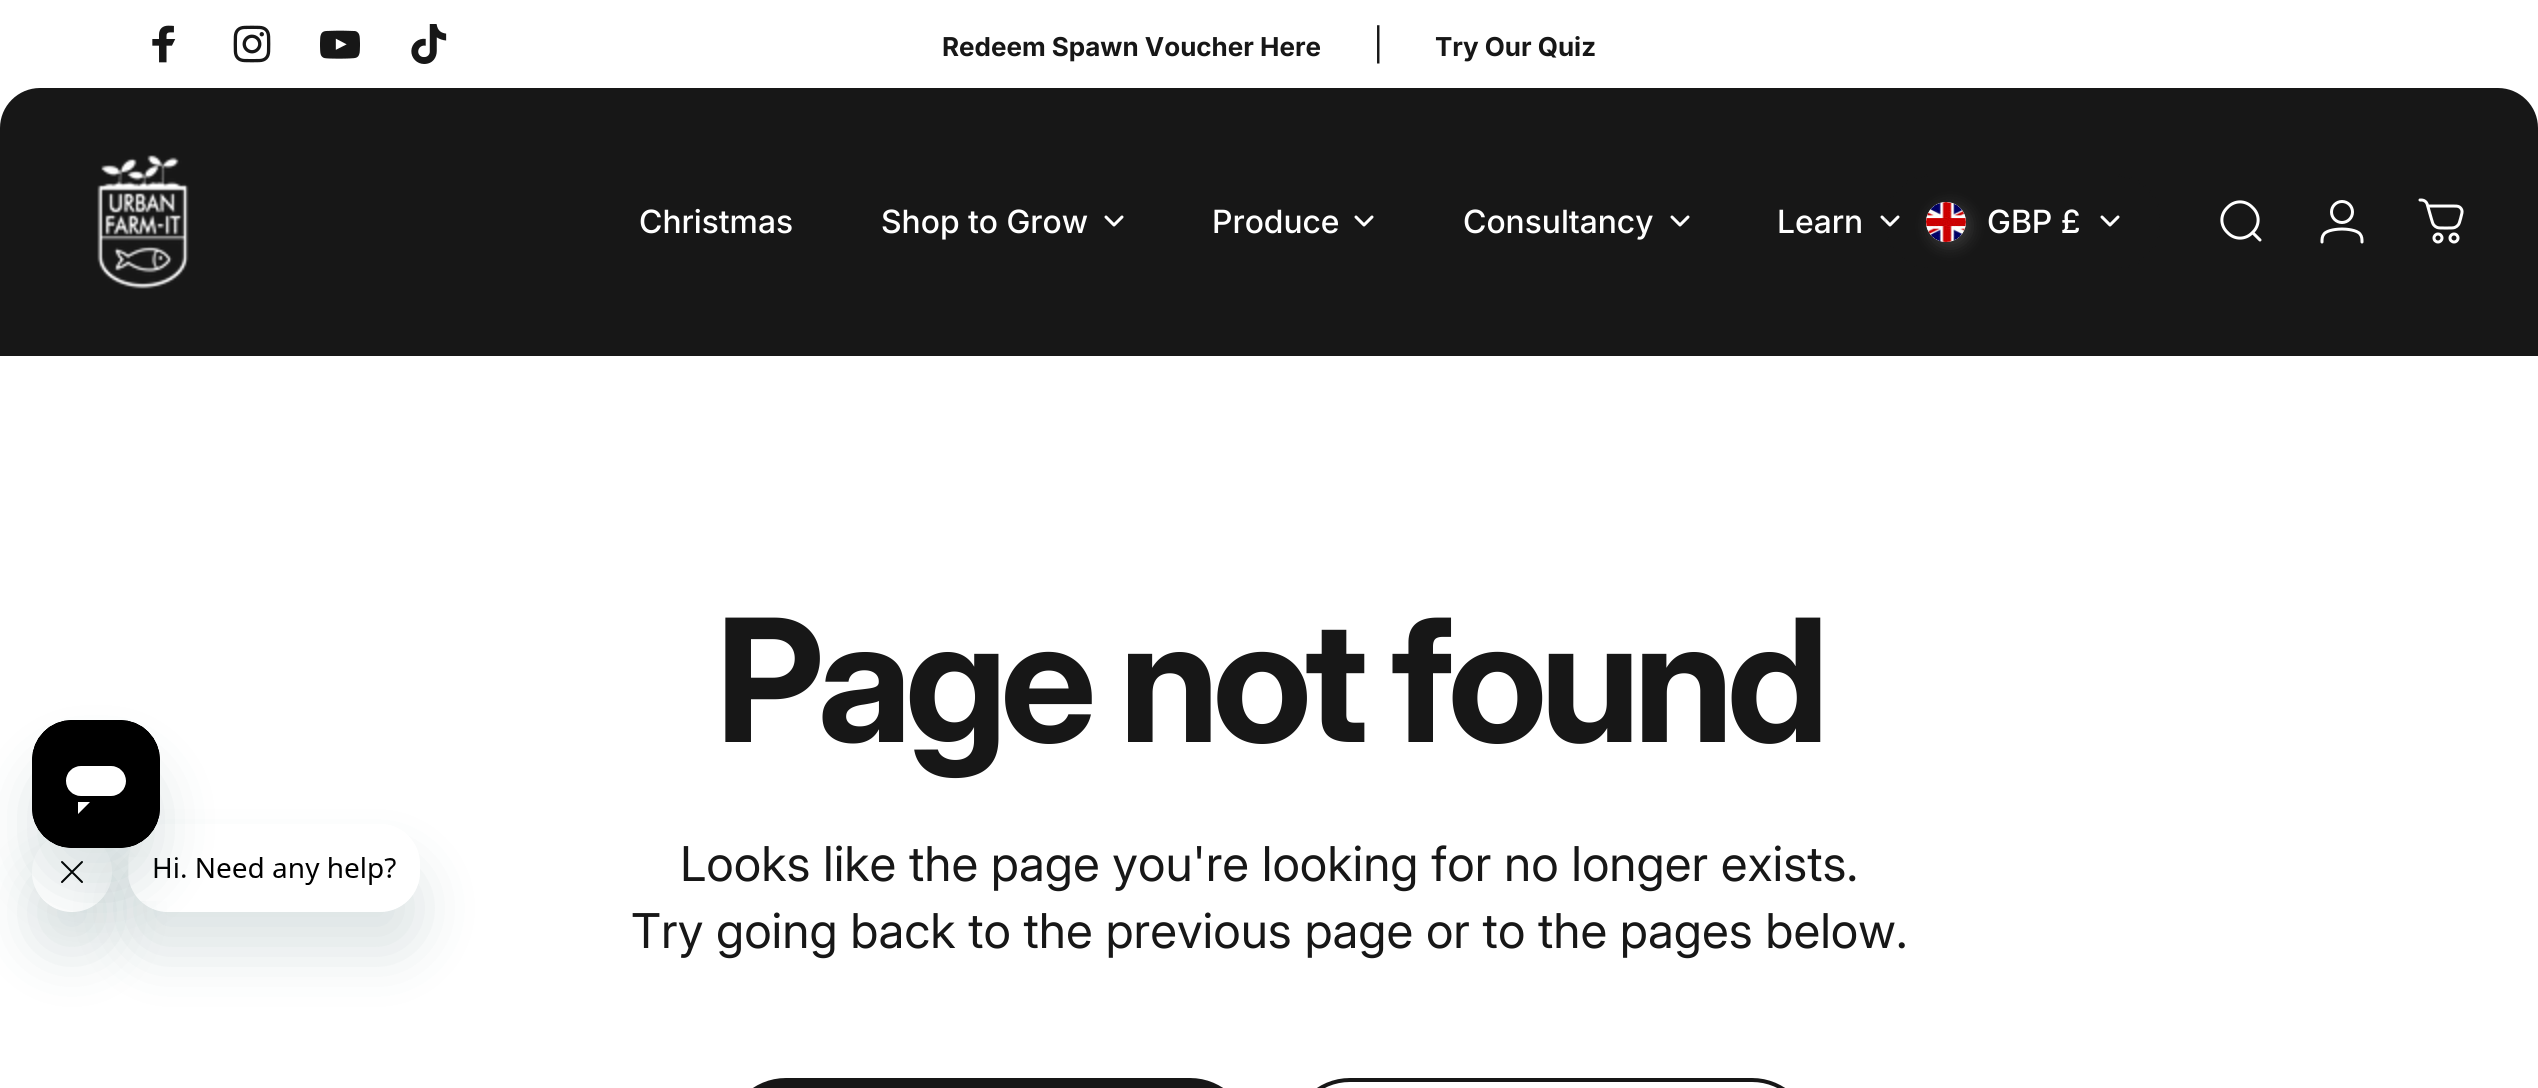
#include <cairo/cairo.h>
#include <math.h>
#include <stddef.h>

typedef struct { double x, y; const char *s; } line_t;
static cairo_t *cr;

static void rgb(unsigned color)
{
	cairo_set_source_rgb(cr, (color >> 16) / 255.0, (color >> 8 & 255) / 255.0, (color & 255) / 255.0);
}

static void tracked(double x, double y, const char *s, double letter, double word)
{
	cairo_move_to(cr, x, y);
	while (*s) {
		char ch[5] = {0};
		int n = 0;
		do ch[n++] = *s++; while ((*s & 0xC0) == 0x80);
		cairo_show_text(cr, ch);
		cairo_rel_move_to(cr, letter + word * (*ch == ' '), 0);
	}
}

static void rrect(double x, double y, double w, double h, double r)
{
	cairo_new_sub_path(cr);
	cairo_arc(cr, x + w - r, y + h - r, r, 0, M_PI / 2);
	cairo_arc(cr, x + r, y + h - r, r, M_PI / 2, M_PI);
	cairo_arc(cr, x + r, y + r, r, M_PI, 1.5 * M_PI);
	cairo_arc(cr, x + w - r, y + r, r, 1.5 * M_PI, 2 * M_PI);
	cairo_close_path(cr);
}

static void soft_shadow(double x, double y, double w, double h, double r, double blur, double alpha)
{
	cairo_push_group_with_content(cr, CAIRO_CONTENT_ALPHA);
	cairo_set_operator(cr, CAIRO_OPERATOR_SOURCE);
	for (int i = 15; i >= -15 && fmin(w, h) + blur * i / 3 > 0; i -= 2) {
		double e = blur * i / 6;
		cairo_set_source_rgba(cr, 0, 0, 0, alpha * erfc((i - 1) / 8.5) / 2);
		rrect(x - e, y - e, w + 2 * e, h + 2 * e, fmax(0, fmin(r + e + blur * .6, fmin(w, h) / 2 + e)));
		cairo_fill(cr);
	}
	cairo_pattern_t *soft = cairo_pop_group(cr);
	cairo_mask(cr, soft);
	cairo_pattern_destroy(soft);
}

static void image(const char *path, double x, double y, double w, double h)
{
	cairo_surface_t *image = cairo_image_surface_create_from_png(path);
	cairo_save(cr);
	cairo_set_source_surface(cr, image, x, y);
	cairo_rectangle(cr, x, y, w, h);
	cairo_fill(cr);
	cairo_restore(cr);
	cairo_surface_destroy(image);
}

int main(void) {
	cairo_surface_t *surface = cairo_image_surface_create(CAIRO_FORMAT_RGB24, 2538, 1088);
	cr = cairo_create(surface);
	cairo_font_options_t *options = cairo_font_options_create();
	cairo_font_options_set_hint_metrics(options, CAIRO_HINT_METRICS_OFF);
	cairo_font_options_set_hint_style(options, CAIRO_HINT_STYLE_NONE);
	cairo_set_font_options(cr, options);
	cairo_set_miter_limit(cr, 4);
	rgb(0xffffff);
	cairo_paint(cr);
	image("img/1.png", 152, 25, 24, 38);
	image("img/2.png", 233, 25, 38, 38);
	image("img/3.png", 320, 30, 40, 29);
	image("img/4.png", 411, 24, 36, 40);
	rgb(0x171717);
	cairo_new_path(cr);
	cairo_move_to(cr, 40, 88);
	cairo_line_to(cr, 2498, 88);
	cairo_curve_to(cr, 2520, 88, 2538, 106, 2538, 128);
	cairo_line_to(cr, 2538, 356);
	cairo_line_to(cr, 0, 356);
	cairo_line_to(cr, 0, 128);
	cairo_curve_to(cr, 0, 106, 18, 88, 40, 88);
	cairo_close_path(cr);
	cairo_fill(cr);
	image("img/5.png", 97, 155, 92, 134);
	cairo_new_path(cr);
	cairo_move_to(cr, 1106, 217);
	cairo_line_to(cr, 1114, 225);
	cairo_line_to(cr, 1122, 217);
	rgb(0xffffff);
	cairo_set_line_width(cr, 3);
	cairo_set_line_cap(cr, CAIRO_LINE_CAP_ROUND);
	cairo_set_line_join(cr, CAIRO_LINE_JOIN_ROUND);
	cairo_stroke(cr);
	cairo_new_path(cr);
	cairo_move_to(cr, 1356, 217);
	cairo_line_to(cr, 1364, 225);
	cairo_line_to(cr, 1372, 217);
	cairo_stroke(cr);
	cairo_new_path(cr);
	cairo_move_to(cr, 1672, 217);
	cairo_line_to(cr, 1680, 225);
	cairo_line_to(cr, 1688, 217);
	cairo_stroke(cr);
	cairo_new_path(cr);
	cairo_move_to(cr, 1882, 217);
	cairo_line_to(cr, 1890, 225);
	cairo_line_to(cr, 1898, 217);
	cairo_stroke(cr);
	rrect(1885, 175, 276, 94, 47);
	cairo_set_source_rgba(cr, 0.09, 0.09, 0.09, 0.1);
	cairo_set_line_width(cr, 2);
	cairo_set_line_cap(cr, CAIRO_LINE_CAP_BUTT);
	cairo_set_line_join(cr, CAIRO_LINE_JOIN_MITER);
	cairo_stroke(cr);
	rgb(0xffffff);
	soft_shadow(1930, 206, 40, 40, 20, 8, 0.15);
	rgb(0xfafafa);
	cairo_arc(cr, 1946, 222, 20, 0, 2 * M_PI);
	cairo_fill(cr);
	image("img/6.png", 1926, 202, 40, 40);
	cairo_new_path(cr);
	cairo_move_to(cr, 2102, 217);
	cairo_line_to(cr, 2110, 225);
	cairo_line_to(cr, 2118, 217);
	rgb(0xffffff);
	cairo_set_line_width(cr, 3);
	cairo_set_line_cap(cr, CAIRO_LINE_CAP_ROUND);
	cairo_set_line_join(cr, CAIRO_LINE_JOIN_ROUND);
	cairo_stroke(cr);
	cairo_new_path(cr);
	cairo_move_to(cr, 2260, 240);
	cairo_line_to(cr, 2252.5, 232.5);
	cairo_move_to(cr, 2252.5, 232.5);
	cairo_curve_to(cr, 2260, 225.5, 2260, 214.5, 2252.5, 207.5);
	cairo_curve_to(cr, 2245.5, 200, 2234.5, 200, 2227.5, 207.5);
	cairo_curve_to(cr, 2220, 214.5, 2220, 225.5, 2227.5, 232.5);
	cairo_curve_to(cr, 2234.5, 240, 2245.5, 240, 2252.5, 232.5);
	cairo_close_path(cr);
	cairo_set_line_join(cr, CAIRO_LINE_JOIN_MITER);
	cairo_stroke(cr);
	cairo_arc(cr, 2342, 212, 10.5, 0, 2 * M_PI);
	cairo_set_line_cap(cr, CAIRO_LINE_CAP_BUTT);
	cairo_stroke(cr);
	cairo_new_path(cr);
	cairo_move_to(cr, 2342, 229);
	cairo_curve_to(cr, 2346.5, 229, 2357, 230, 2360, 234);
	cairo_curve_to(cr, 2362, 236.5, 2362, 239, 2362, 242);
	cairo_move_to(cr, 2342, 229);
	cairo_curve_to(cr, 2337.5, 229, 2327, 230, 2324, 234);
	cairo_curve_to(cr, 2322, 236.5, 2322, 239, 2322, 242);
	cairo_set_line_cap(cr, CAIRO_LINE_CAP_ROUND);
	cairo_stroke(cr);
	image("img/7.png", 2418, 198, 46, 46);
	cairo_save(cr);
	cairo_set_fill_rule(cr, CAIRO_FILL_RULE_EVEN_ODD);
	cairo_new_path(cr);
	cairo_move_to(cr, 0, 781);
	cairo_line_to(cr, 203, 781);
	cairo_line_to(cr, 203, 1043);
	cairo_line_to(cr, 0, 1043);
	cairo_close_path(cr);
	cairo_move_to(cr, 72, 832);
	cairo_curve_to(cr, 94, 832, 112, 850, 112, 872);
	cairo_curve_to(cr, 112, 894, 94, 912, 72, 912);
	cairo_curve_to(cr, 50, 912, 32, 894, 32, 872);
	cairo_curve_to(cr, 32, 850, 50, 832, 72, 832);
	cairo_close_path(cr);
	cairo_clip(cr);
	rgb(0x17494d);
	soft_shadow(32, 872, 80, 80, 40, 30, 0.15);
	cairo_restore(cr);
	image("img/10.png", 61, 861, 22, 22);
	cairo_save(cr);
	cairo_set_fill_rule(cr, CAIRO_FILL_RULE_EVEN_ODD);
	cairo_new_path(cr);
	cairo_move_to(cr, 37, 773);
	cairo_line_to(cr, 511, 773);
	cairo_line_to(cr, 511, 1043);
	cairo_line_to(cr, 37, 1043);
	cairo_close_path(cr);
	cairo_move_to(cr, 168, 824);
	cairo_line_to(cr, 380, 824);
	cairo_curve_to(cr, 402, 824, 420, 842, 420, 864);
	cairo_line_to(cr, 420, 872);
	cairo_curve_to(cr, 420, 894, 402, 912, 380, 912);
	cairo_line_to(cr, 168, 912);
	cairo_curve_to(cr, 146, 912, 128, 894, 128, 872);
	cairo_line_to(cr, 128, 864);
	cairo_curve_to(cr, 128, 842, 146, 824, 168, 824);
	cairo_close_path(cr);
	cairo_clip(cr);
	rgb(0x17494d);
	soft_shadow(128, 864, 292, 88, 40, 30, 0.15);
	cairo_restore(cr);
	image("img/9.png", 129, 857, 267, 44);
	rgb(0x17494d);
	soft_shadow(32, 760, 128, 128, 40, 30, 0.15);
	image("img/8.png", 32, 720, 128, 128);
	rgb(0x171717);
	rrect(728, 1080, 520, 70, 58);
	cairo_fill_preserve(cr);
	cairo_set_line_width(cr, 4);
	cairo_set_line_cap(cr, CAIRO_LINE_CAP_BUTT);
	cairo_stroke(cr);
	rrect(1292, 1080, 518, 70, 58);
	cairo_stroke(cr);
	cairo_select_font_face(cr, "Inter", CAIRO_FONT_SLANT_NORMAL, CAIRO_FONT_WEIGHT_BOLD);
	cairo_set_font_size(cr, 26);
	cairo_move_to(cr, 942, 56);
	cairo_show_text(cr, "Redeem Spawn Voucher Here");
	cairo_select_font_face(cr, "Inter", CAIRO_FONT_SLANT_NORMAL, CAIRO_FONT_WEIGHT_NORMAL);
	cairo_set_font_size(cr, 32);
	cairo_move_to(cr, 1373, 56);
	cairo_show_text(cr, "|");
	cairo_select_font_face(cr, "Inter", CAIRO_FONT_SLANT_NORMAL, CAIRO_FONT_WEIGHT_BOLD);
	cairo_set_font_size(cr, 26);
	cairo_move_to(cr, 1435, 56);
	cairo_show_text(cr, "Try Our Quiz");
	cairo_select_font_face(cr, "Inter Medium", CAIRO_FONT_SLANT_NORMAL, CAIRO_FONT_WEIGHT_NORMAL);
	cairo_set_font_size(cr, 32);
	rgb(0xffffff);
	{
		static const line_t items[] = {
			{639, 233, "Christmas"},
			{881, 233, "Shop to Grow"},
			{1212, 233, "Produce"},
			{1463, 233, "Consultancy"},
			{1777, 233, "Learn"},
			{1987, 233, "GBP £"},
		};
		for (size_t i = 0; i < sizeof items / sizeof *items; i++) {
			cairo_move_to(cr, items[i].x, items[i].y);
			cairo_show_text(cr, items[i].s);
		}
	}
	cairo_select_font_face(cr, "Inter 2", CAIRO_FONT_SLANT_NORMAL, CAIRO_FONT_WEIGHT_BOLD);
	cairo_set_font_size(cr, 171);
	rgb(0x171717);
	tracked(716, 742, "Page not found", -6.8, 0);
	cairo_select_font_face(cr, "Inter 2", CAIRO_FONT_SLANT_NORMAL, CAIRO_FONT_WEIGHT_NORMAL);
	cairo_set_font_size(cr, 48);
	cairo_move_to(cr, 680, 881);
	cairo_show_text(cr, "Looks like the page you're looking for no longer exists.");
	cairo_move_to(cr, 631, 948);
	cairo_show_text(cr, "Try going back to the previous page or to the pages below.");
	cairo_surface_write_to_png(surface, "page.png");
	cairo_font_options_destroy(options);
	cairo_destroy(cr);
	cairo_surface_destroy(surface);
	return 0;
}
